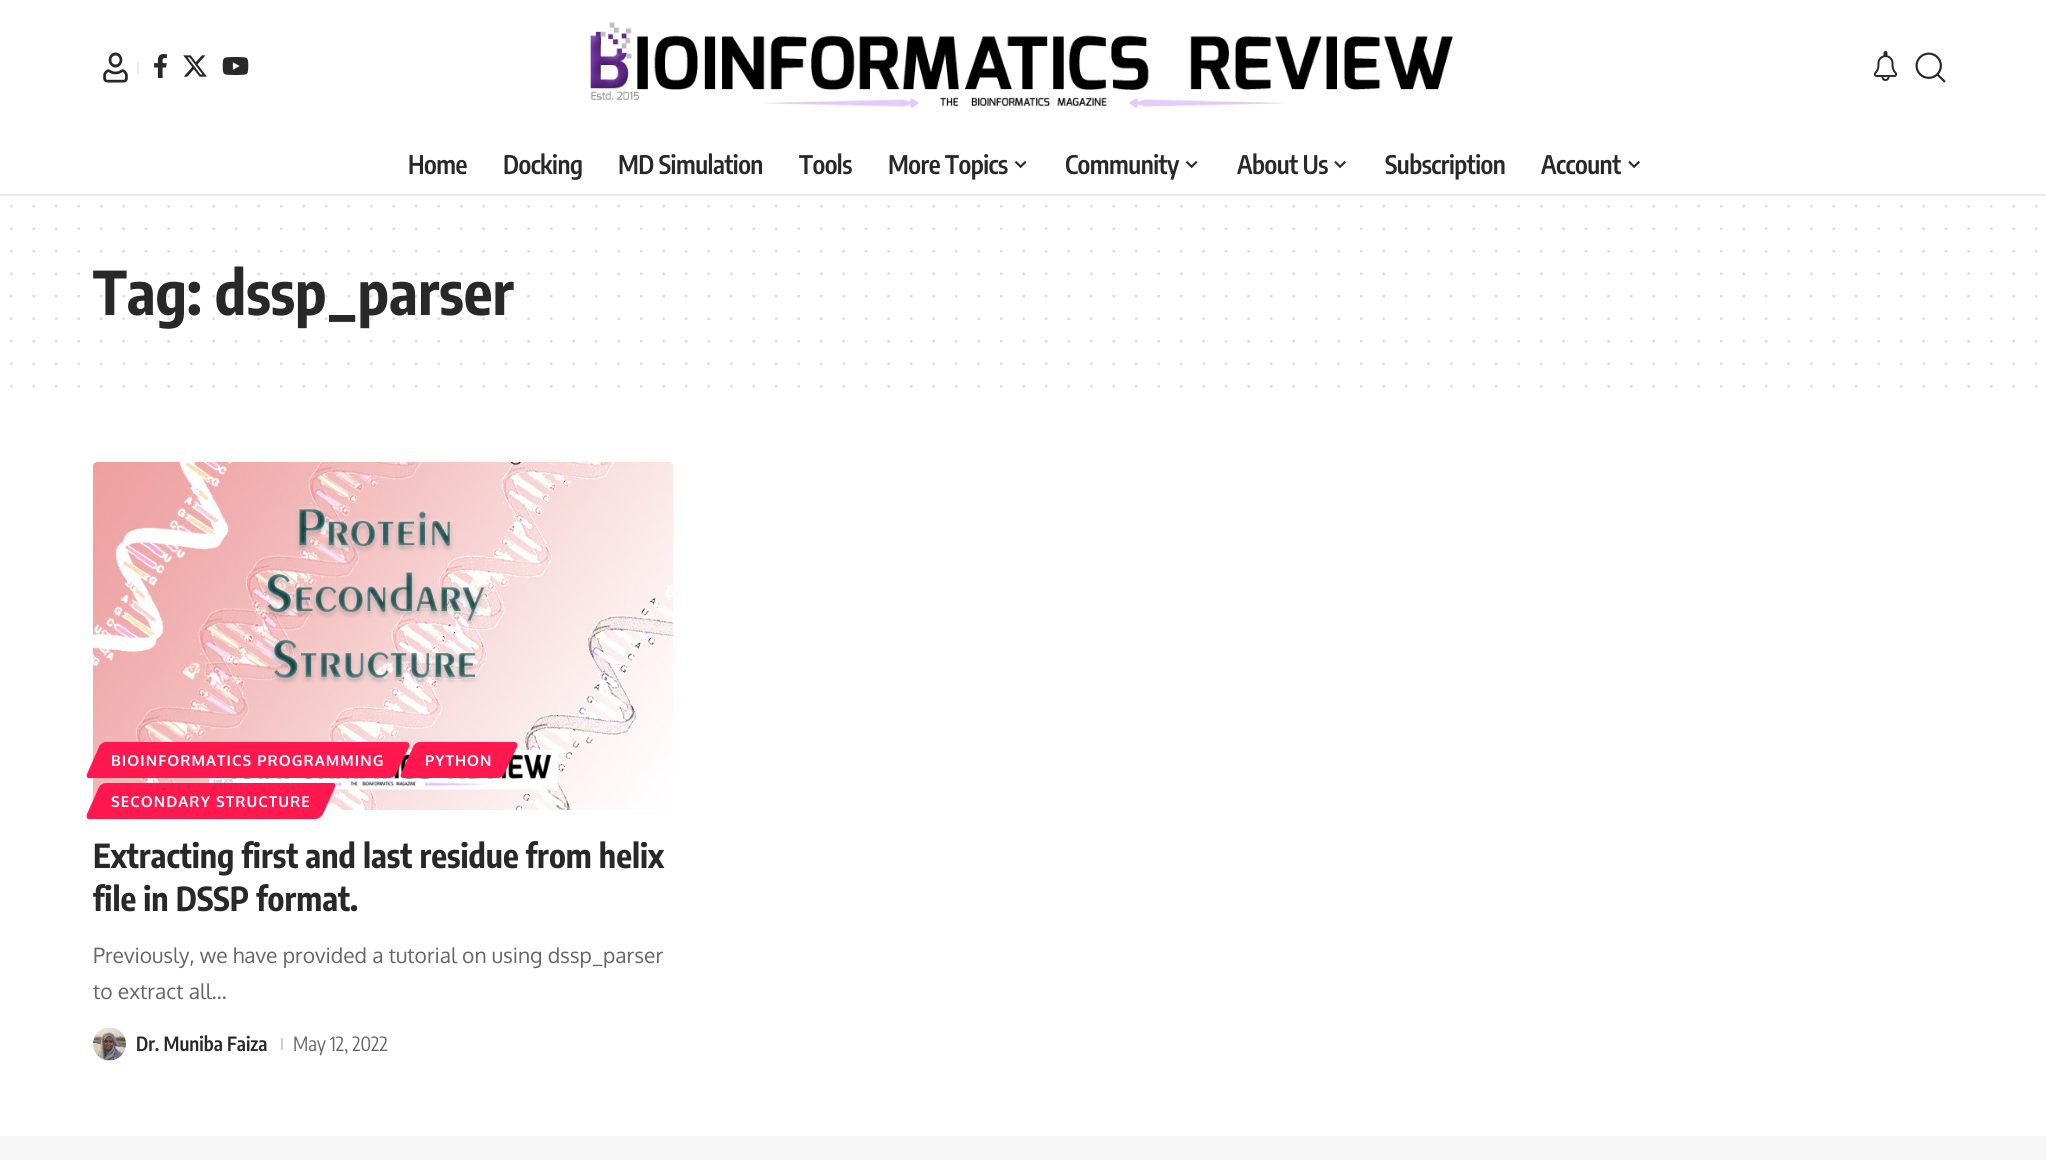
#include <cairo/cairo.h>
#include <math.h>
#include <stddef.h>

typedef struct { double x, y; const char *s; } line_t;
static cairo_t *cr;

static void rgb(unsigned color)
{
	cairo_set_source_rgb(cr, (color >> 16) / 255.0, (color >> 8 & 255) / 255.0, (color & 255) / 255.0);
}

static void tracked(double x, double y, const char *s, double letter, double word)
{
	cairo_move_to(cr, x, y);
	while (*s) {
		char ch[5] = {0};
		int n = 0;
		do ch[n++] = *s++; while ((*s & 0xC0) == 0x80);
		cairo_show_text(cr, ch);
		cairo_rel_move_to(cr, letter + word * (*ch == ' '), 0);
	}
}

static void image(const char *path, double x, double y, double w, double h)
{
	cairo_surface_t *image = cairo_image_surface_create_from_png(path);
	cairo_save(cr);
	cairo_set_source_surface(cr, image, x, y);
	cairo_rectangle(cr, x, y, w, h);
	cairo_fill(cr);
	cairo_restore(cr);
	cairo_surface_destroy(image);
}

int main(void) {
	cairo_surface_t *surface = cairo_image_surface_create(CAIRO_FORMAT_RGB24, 2046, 1160);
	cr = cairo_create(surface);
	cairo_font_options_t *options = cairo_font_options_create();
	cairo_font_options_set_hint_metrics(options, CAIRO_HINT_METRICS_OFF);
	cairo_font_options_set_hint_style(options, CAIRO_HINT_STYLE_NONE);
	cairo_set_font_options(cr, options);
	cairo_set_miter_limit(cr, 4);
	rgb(0xffffff);
	cairo_paint(cr);
	image("img/1.png", 103, 52, 25, 31);
	rgb(0xeaeaea);
	cairo_rectangle(cr, 137, 62, 2, 12);
	cairo_fill(cr);
	image("img/2.png", 154, 54, 13, 24);
	image("img/3.png", 183, 55, 24, 22);
	image("img/4.png", 222, 57, 27, 18);
	image("img/5.png", 590, 22, 863, 86);
	image("img/6.png", 1873, 51, 25, 30);
	image("img/7.png", 1915, 52, 31, 31);
	image("img/8.png", 1014, 160, 13, 9);
	image("img/8.png", 1185, 160, 13, 9);
	image("img/9.png", 1334, 160, 12, 9);
	image("img/9.png", 1628, 160, 12, 9);
	rgb(0xededed);
	cairo_rectangle(cr, 0, 194, 2046, 2);
	cairo_fill(cr);
	cairo_new_path(cr);
	cairo_move_to(cr, 11.2, 206.2);
	cairo_line_to(cr, 2036.6, 206.2);
	rgb(0xdfdfdf);
	cairo_set_line_width(cr, 3);
	cairo_set_line_cap(cr, CAIRO_LINE_CAP_ROUND);
	cairo_set_dash(cr, (double[]){0, 22.5}, 2, 0);
	cairo_stroke(cr);
	cairo_new_path(cr);
	cairo_move_to(cr, 11.2, 228.8);
	cairo_line_to(cr, 2036.6, 228.8);
	cairo_stroke(cr);
	cairo_new_path(cr);
	cairo_move_to(cr, 11.2, 251.2);
	cairo_line_to(cr, 2036.6, 251.2);
	cairo_stroke(cr);
	cairo_new_path(cr);
	cairo_move_to(cr, 11.2, 341.2);
	cairo_line_to(cr, 2036.6, 341.2);
	cairo_stroke(cr);
	cairo_new_path(cr);
	cairo_move_to(cr, 11.2, 363.8);
	cairo_line_to(cr, 2036.6, 363.8);
	cairo_stroke(cr);
	cairo_new_path(cr);
	cairo_move_to(cr, 11.2, 386.2);
	cairo_line_to(cr, 2036.6, 386.2);
	cairo_stroke(cr);
	image("img/10.png", 93, 462, 581, 348);
	rgb(0xff184e);
	cairo_new_path(cr);
	cairo_move_to(cr, 106, 742);
	cairo_line_to(cr, 406, 742);
	cairo_curve_to(cr, 409, 742, 410, 744, 409, 747);
	cairo_line_to(cr, 396, 774);
	cairo_curve_to(cr, 395, 776, 392, 778, 390, 778);
	cairo_line_to(cr, 89, 778);
	cairo_curve_to(cr, 87, 778, 86, 776, 87, 774);
	cairo_line_to(cr, 99, 747);
	cairo_curve_to(cr, 100, 744, 103, 742, 106, 742);
	cairo_close_path(cr);
	cairo_fill(cr);
	cairo_new_path(cr);
	cairo_move_to(cr, 420, 742);
	cairo_line_to(cr, 514, 742);
	cairo_curve_to(cr, 517, 742, 518, 744, 517, 747);
	cairo_line_to(cr, 504, 774);
	cairo_curve_to(cr, 503, 776, 500, 778, 498, 778);
	cairo_line_to(cr, 403, 778);
	cairo_curve_to(cr, 401, 778, 400, 776, 401, 774);
	cairo_line_to(cr, 413, 747);
	cairo_curve_to(cr, 414, 744, 417, 742, 420, 742);
	cairo_close_path(cr);
	cairo_fill(cr);
	cairo_new_path(cr);
	cairo_move_to(cr, 106, 783);
	cairo_line_to(cr, 333, 783);
	cairo_curve_to(cr, 335, 783, 336, 785, 335, 787);
	cairo_line_to(cr, 323, 814);
	cairo_curve_to(cr, 321, 817, 318, 819, 316, 819);
	cairo_line_to(cr, 89, 819);
	cairo_curve_to(cr, 87, 819, 86, 817, 87, 814);
	cairo_line_to(cr, 99, 787);
	cairo_curve_to(cr, 100, 785, 103, 783, 106, 783);
	cairo_close_path(cr);
	cairo_fill(cr);
	image("img/11.png", 93, 1027, 33, 34);
	rgb(0xd1d1d1);
	cairo_rectangle(cr, 281, 1038, 2, 12);
	cairo_fill(cr);
	rgb(0xf7f7f7);
	cairo_rectangle(cr, 0, 1136, 2046, 24);
	cairo_fill(cr);
	cairo_select_font_face(cr, "Encode Sans Condensed SemiBold", CAIRO_FONT_SLANT_NORMAL, CAIRO_FONT_WEIGHT_NORMAL);
	cairo_set_font_size(cr, 25.5);
	rgb(0x282828);
	{
		static const line_t items[] = {
			{408, 174, "Home"},
			{503, 174, "Docking"},
			{618, 174, "MD Simulation"},
			{799, 174, "Tools"},
			{888, 174, "More Topics"},
			{1065, 174, "Community"},
			{1237, 174, "About Us"},
			{1385, 174, "Subscription"},
			{1541, 174, "Account"},
		};
		for (size_t i = 0; i < sizeof items / sizeof *items; i++) {
			tracked(items[i].x, items[i].y, items[i].s, -0.5, 0);
		}
	}
	cairo_select_font_face(cr, "Encode Sans Condensed", CAIRO_FONT_SLANT_NORMAL, CAIRO_FONT_WEIGHT_BOLD);
	cairo_set_font_size(cr, 60);
	cairo_move_to(cr, 93, 315);
	cairo_show_text(cr, "Tag: dssp_parser");
	cairo_new_path(cr);
	cairo_move_to(cr, 11.2, 318.8);
	cairo_line_to(cr, 2036.6, 318.8);
	cairo_set_source_rgba(cr, 0.157, 0.157, 0.157, 0.15);
	cairo_stroke(cr);
	cairo_new_path(cr);
	cairo_move_to(cr, 11.2, 296.2);
	cairo_line_to(cr, 2036.6, 296.2);
	cairo_stroke(cr);
	cairo_new_path(cr);
	cairo_move_to(cr, 11.2, 273.8);
	cairo_line_to(cr, 2036.6, 273.8);
	cairo_stroke(cr);
	cairo_select_font_face(cr, "Oxygen", CAIRO_FONT_SLANT_NORMAL, CAIRO_FONT_WEIGHT_BOLD);
	cairo_set_font_size(cr, 15);
	rgb(0xffffff);
	{
		static const line_t items[] = {
			{111, 766, "BIOINFORMATICS PROGRAMMING"},
			{425, 766, "PYTHON"},
			{111, 807, "SECONDARY STRUCTURE"},
		};
		for (size_t i = 0; i < sizeof items / sizeof *items; i++) {
			tracked(items[i].x, items[i].y, items[i].s, 1.05, 0);
		}
	}
	cairo_select_font_face(cr, "Encode Sans Condensed", CAIRO_FONT_SLANT_NORMAL, CAIRO_FONT_WEIGHT_BOLD);
	cairo_set_font_size(cr, 33);
	rgb(0x282828);
	cairo_move_to(cr, 93, 868);
	cairo_show_text(cr, "Extracting first and last residue from helix");
	cairo_move_to(cr, 93, 911);
	cairo_show_text(cr, "file in DSSP format.");
	cairo_select_font_face(cr, "Oxygen", CAIRO_FONT_SLANT_NORMAL, CAIRO_FONT_WEIGHT_NORMAL);
	cairo_set_font_size(cr, 21);
	rgb(0x666666);
	cairo_move_to(cr, 93, 963);
	cairo_show_text(cr, "Previously, we have provided a tutorial on using dssp_parser");
	cairo_move_to(cr, 93, 999);
	cairo_show_text(cr, "to extract all…");
	cairo_select_font_face(cr, "Encode Sans Condensed SemiBold", CAIRO_FONT_SLANT_NORMAL, CAIRO_FONT_WEIGHT_NORMAL);
	cairo_set_font_size(cr, 19.5);
	rgb(0x282828);
	cairo_move_to(cr, 136, 1051);
	cairo_show_text(cr, "Dr. Muniba Faiza");
	cairo_select_font_face(cr, "Encode Sans Condensed", CAIRO_FONT_SLANT_NORMAL, CAIRO_FONT_WEIGHT_NORMAL);
	rgb(0x666666);
	cairo_move_to(cr, 293, 1051);
	cairo_show_text(cr, "May 12, 2022");
	cairo_surface_write_to_png(surface, "page.png");
	cairo_font_options_destroy(options);
	cairo_destroy(cr);
	cairo_surface_destroy(surface);
	return 0;
}
